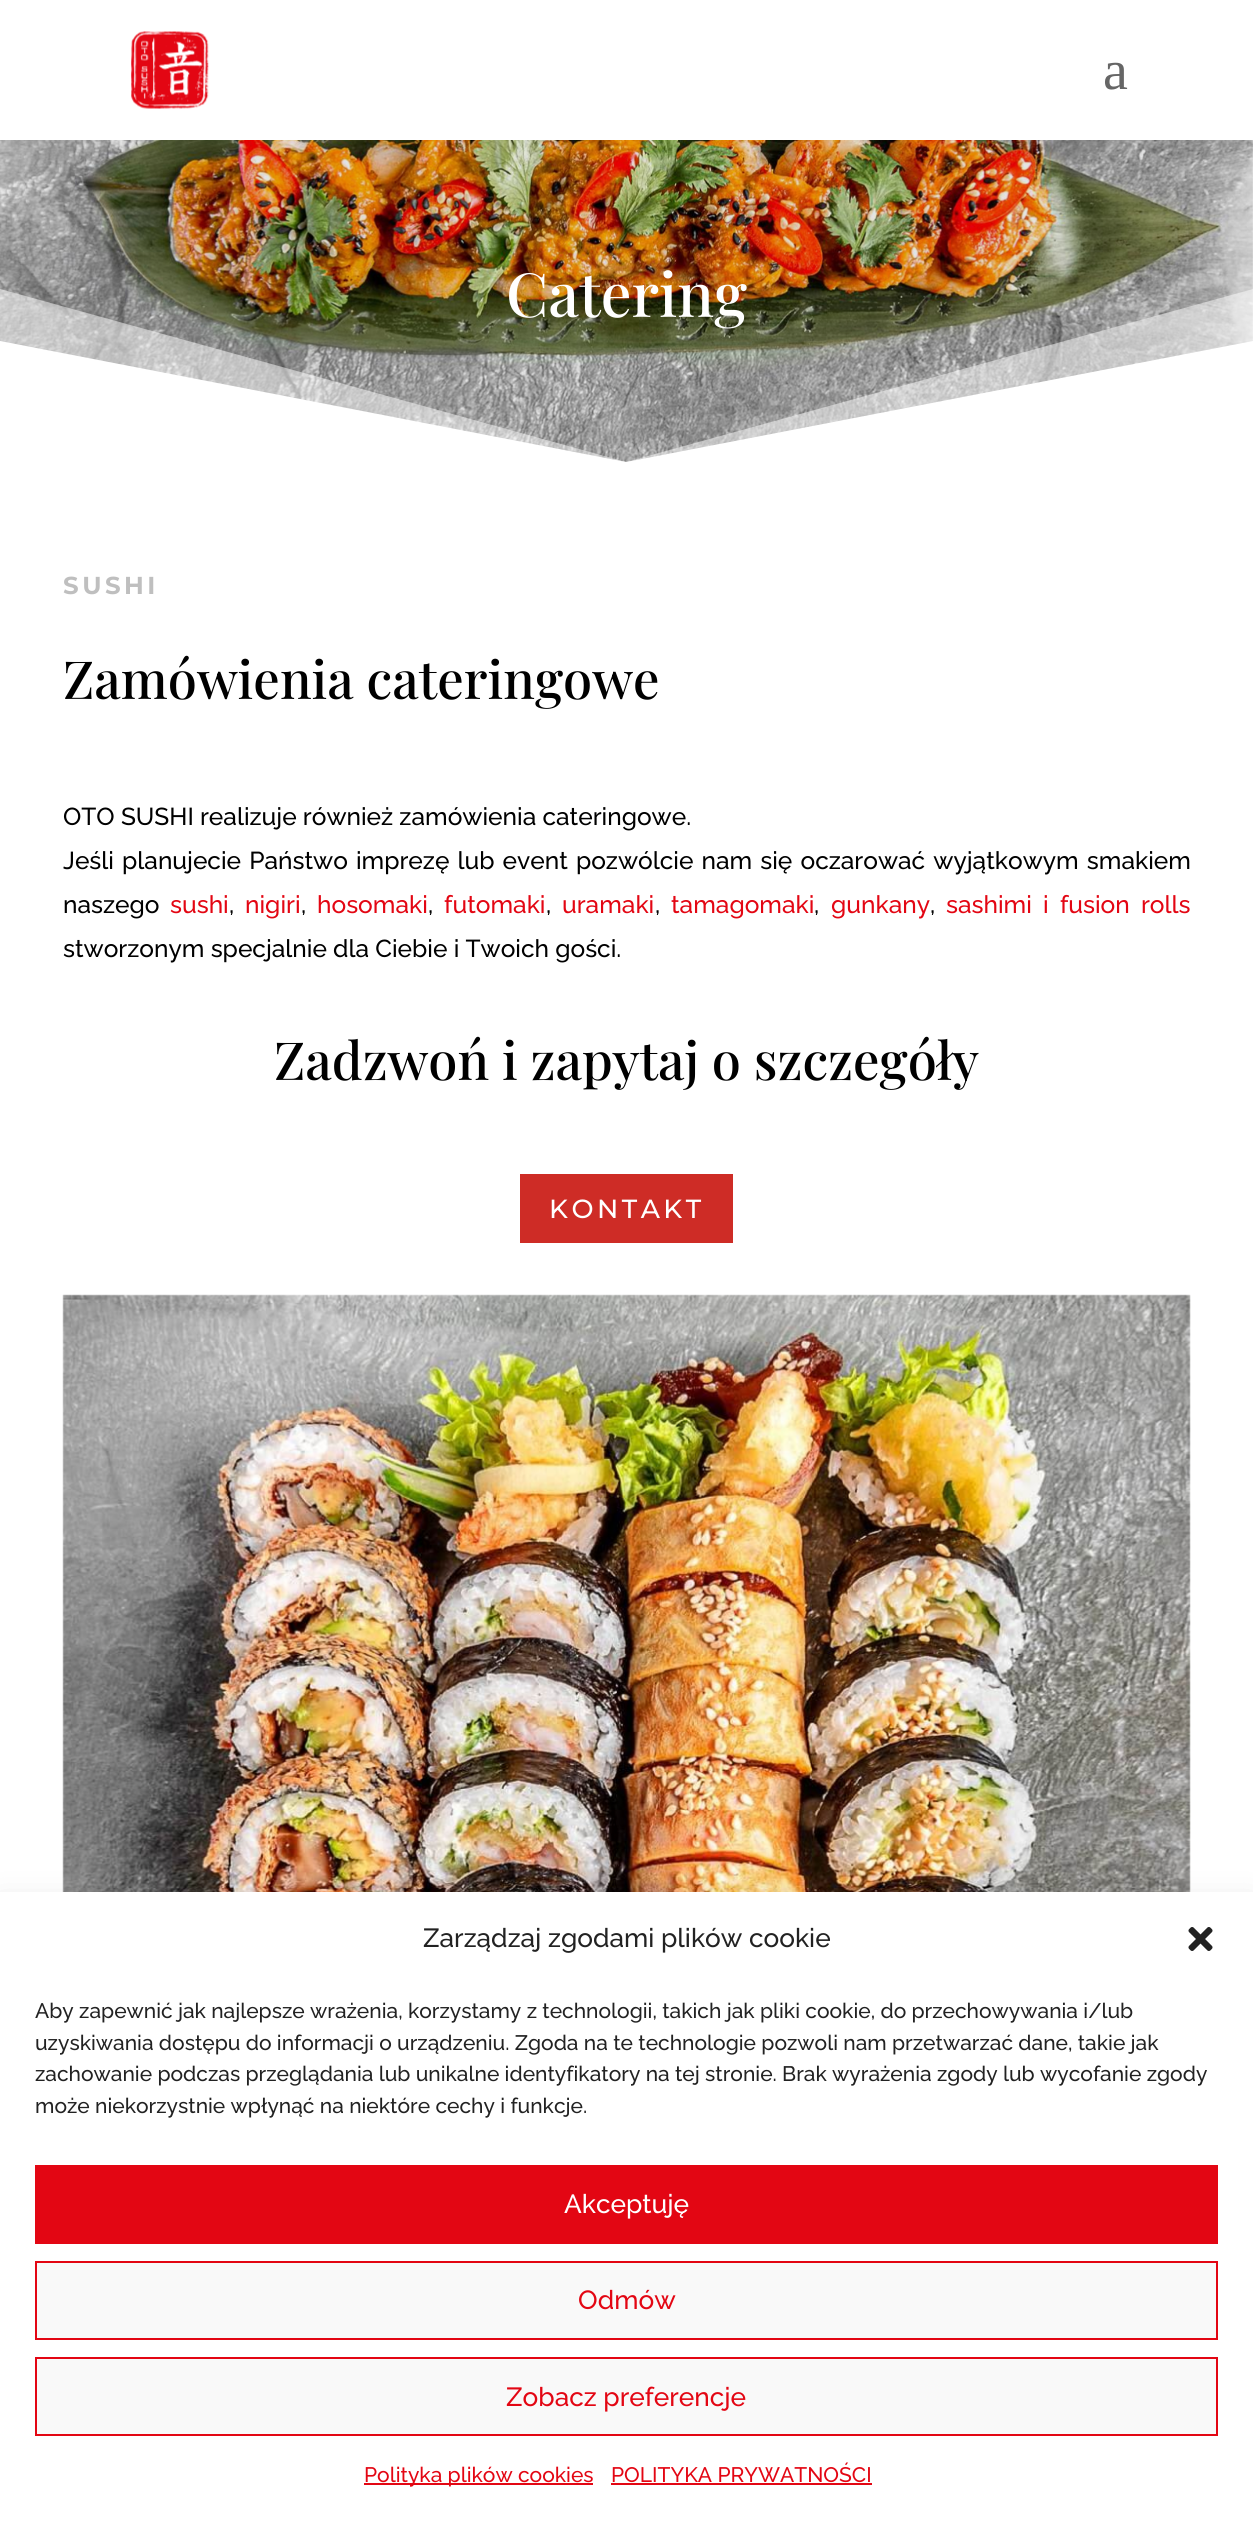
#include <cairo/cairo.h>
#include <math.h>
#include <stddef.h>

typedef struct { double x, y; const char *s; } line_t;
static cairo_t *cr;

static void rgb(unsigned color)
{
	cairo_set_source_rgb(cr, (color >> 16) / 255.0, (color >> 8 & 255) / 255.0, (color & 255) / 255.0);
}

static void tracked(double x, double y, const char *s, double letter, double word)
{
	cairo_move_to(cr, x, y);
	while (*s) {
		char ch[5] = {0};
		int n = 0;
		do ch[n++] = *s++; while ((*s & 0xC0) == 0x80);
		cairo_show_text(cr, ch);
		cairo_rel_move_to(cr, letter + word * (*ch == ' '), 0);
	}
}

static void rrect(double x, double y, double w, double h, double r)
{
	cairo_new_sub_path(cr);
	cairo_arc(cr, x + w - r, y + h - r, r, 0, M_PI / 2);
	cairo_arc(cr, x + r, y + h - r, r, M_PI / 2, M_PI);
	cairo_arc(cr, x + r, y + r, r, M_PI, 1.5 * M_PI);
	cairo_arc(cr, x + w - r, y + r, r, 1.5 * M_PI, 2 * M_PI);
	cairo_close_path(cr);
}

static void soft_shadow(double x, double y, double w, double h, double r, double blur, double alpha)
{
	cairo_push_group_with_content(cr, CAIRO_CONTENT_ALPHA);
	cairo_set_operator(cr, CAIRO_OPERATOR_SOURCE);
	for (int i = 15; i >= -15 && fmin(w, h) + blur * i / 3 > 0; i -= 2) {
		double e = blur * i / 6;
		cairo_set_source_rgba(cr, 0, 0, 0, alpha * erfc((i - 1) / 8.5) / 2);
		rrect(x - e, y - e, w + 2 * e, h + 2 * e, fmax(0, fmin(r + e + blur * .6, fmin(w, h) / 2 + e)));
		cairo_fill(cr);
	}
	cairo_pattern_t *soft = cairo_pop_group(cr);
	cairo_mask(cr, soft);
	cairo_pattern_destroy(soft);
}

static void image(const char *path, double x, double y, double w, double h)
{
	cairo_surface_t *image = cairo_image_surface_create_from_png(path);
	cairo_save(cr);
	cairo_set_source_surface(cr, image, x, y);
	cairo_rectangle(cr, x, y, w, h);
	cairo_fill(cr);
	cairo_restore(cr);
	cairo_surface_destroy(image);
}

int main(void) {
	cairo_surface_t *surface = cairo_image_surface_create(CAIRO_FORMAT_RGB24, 1253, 2522);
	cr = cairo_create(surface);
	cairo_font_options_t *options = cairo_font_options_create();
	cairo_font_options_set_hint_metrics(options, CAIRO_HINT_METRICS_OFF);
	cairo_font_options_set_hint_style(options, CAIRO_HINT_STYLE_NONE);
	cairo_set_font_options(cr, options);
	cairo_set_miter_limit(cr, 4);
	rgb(0xffffff);
	cairo_paint(cr);
	image("img/1.png", 131, 31, 78, 78);
	image("img/2.png", 0, 140, 1253, 322);
	rgb(0xce2c26);
	cairo_rectangle(cr, 520, 1174, 213, 69);
	cairo_fill(cr);
	image("img/3.png", 62, 1294, 1129, 598);
	rgb(0x000000);
	soft_shadow(0, 1909, 1253, 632, 0, 17.5, 0.19);
	rgb(0xffffff);
	cairo_rectangle(cr, 0, 1892, 1253, 630);
	cairo_fill(cr);
	image("img/4.png", 1188, 1927, 25, 24);
	rgb(0xe30613);
	cairo_rectangle(cr, 35, 2165, 1183, 79);
	cairo_fill(cr);
	rgb(0xf9f9f9);
	cairo_rectangle(cr, 36, 2262, 1181, 77);
	cairo_fill_preserve(cr);
	rgb(0xe30613);
	cairo_stroke(cr);
	rgb(0xf9f9f9);
	cairo_rectangle(cr, 36, 2358, 1181, 77);
	cairo_fill_preserve(cr);
	rgb(0xe30613);
	cairo_stroke(cr);
	cairo_rectangle(cr, 364, 2483, 229, 2);
	cairo_fill(cr);
	cairo_rectangle(cr, 611, 2483, 261, 2);
	cairo_fill(cr);
	cairo_select_font_face(cr, "Liberation Serif", CAIRO_FONT_SLANT_NORMAL, CAIRO_FONT_WEIGHT_NORMAL);
	cairo_set_font_size(cr, 56);
	rgb(0x666666);
	cairo_move_to(cr, 1103, 89);
	cairo_show_text(cr, "a");
	cairo_select_font_face(cr, "Playfair Display Medium", CAIRO_FONT_SLANT_NORMAL, CAIRO_FONT_WEIGHT_NORMAL);
	cairo_set_font_size(cr, 61);
	rgb(0xffffff);
	cairo_move_to(cr, 506, 317);
	cairo_show_text(cr, "Catering");
	cairo_set_source_rgba(cr, 1, 1, 1, 0.5);
	cairo_new_path(cr);
	cairo_move_to(cr, 626, 462);
	cairo_line_to(cr, 0, 289);
	cairo_line_to(cr, 0, 464);
	cairo_line_to(cr, 1253, 464);
	cairo_line_to(cr, 1253, 289);
	cairo_close_path(cr);
	cairo_fill(cr);
	rgb(0xffffff);
	cairo_new_path(cr);
	cairo_move_to(cr, 626, 462);
	cairo_line_to(cr, 0, 341);
	cairo_line_to(cr, 0, 464);
	cairo_line_to(cr, 1253, 464);
	cairo_line_to(cr, 1253, 341);
	cairo_close_path(cr);
	cairo_fill(cr);
	cairo_select_font_face(cr, "Montserrat Thin", CAIRO_FONT_SLANT_NORMAL, CAIRO_FONT_WEIGHT_NORMAL);
	cairo_set_font_size(cr, 24.5);
	rgb(0xbfbfbf);
	tracked(63, 594, "SUSHI", 3.5, 0);
	cairo_select_font_face(cr, "Playfair Display Medium", CAIRO_FONT_SLANT_NORMAL, CAIRO_FONT_WEIGHT_NORMAL);
	cairo_set_font_size(cr, 52.5);
	rgb(0x000000);
	cairo_move_to(cr, 63, 699);
	cairo_show_text(cr, "Zamówienia cateringowe");
	cairo_select_font_face(cr, "Raleway Thin", CAIRO_FONT_SLANT_NORMAL, CAIRO_FONT_WEIGHT_NORMAL);
	cairo_set_font_size(cr, 24.5);
	cairo_move_to(cr, 63, 825);
	cairo_show_text(cr, "OTO SUSHI realizuje również zamówienia cateringowe.");
	tracked(63, 869, "Jeśli planujecie Państwo imprezę lub event pozwólcie nam się oczarować wyjątkowym smakiem", 0, 1.9);
	cairo_move_to(cr, 63, 913);
	cairo_show_text(cr, "naszego");
	rgb(0xe30613);
	cairo_move_to(cr, 170, 913);
	cairo_show_text(cr, "sushi");
	rgb(0x000000);
	cairo_move_to(cr, 229, 913);
	cairo_show_text(cr, ",");
	rgb(0xe30613);
	cairo_move_to(cr, 245, 913);
	cairo_show_text(cr, "nigiri");
	rgb(0x000000);
	cairo_move_to(cr, 301, 913);
	cairo_show_text(cr, ",");
	rgb(0xe30613);
	cairo_move_to(cr, 317, 913);
	cairo_show_text(cr, "hosomaki");
	rgb(0x000000);
	cairo_move_to(cr, 428, 913);
	cairo_show_text(cr, ",");
	rgb(0xe30613);
	cairo_move_to(cr, 444, 913);
	cairo_show_text(cr, "futomaki");
	rgb(0x000000);
	cairo_move_to(cr, 546, 913);
	cairo_show_text(cr, ",");
	rgb(0xe30613);
	cairo_move_to(cr, 562, 913);
	cairo_show_text(cr, "uramaki");
	rgb(0x000000);
	cairo_move_to(cr, 655, 913);
	cairo_show_text(cr, ",");
	rgb(0xe30613);
	cairo_move_to(cr, 671, 913);
	cairo_show_text(cr, "tamagomaki");
	rgb(0x000000);
	cairo_move_to(cr, 814, 913);
	cairo_show_text(cr, ",");
	rgb(0xe30613);
	cairo_move_to(cr, 831, 913);
	cairo_show_text(cr, "gunkany");
	rgb(0x000000);
	cairo_move_to(cr, 930, 913);
	cairo_show_text(cr, ",");
	rgb(0xe30613);
	tracked(946, 913, "sashimi i fusion rolls", 0, 5);
	rgb(0x000000);
	cairo_move_to(cr, 63, 957);
	cairo_show_text(cr, "stworzonym specjalnie dla Ciebie i Twoich gości.");
	cairo_select_font_face(cr, "Playfair Display Medium", CAIRO_FONT_SLANT_NORMAL, CAIRO_FONT_WEIGHT_NORMAL);
	cairo_set_font_size(cr, 52.5);
	cairo_move_to(cr, 274, 1080);
	cairo_show_text(cr, "Zadzwoń i zapytaj o szczegóły");
	cairo_select_font_face(cr, "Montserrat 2 Thin", CAIRO_FONT_SLANT_NORMAL, CAIRO_FONT_WEIGHT_NORMAL);
	cairo_set_font_size(cr, 26.25);
	rgb(0xffffff);
	tracked(549, 1218, "KONTAKT", 3.5, 0);
	cairo_select_font_face(cr, "Raleway Thin", CAIRO_FONT_SLANT_NORMAL, CAIRO_FONT_WEIGHT_NORMAL);
	rgb(0x222222);
	cairo_move_to(cr, 423, 1947);
	cairo_show_text(cr, "Zarządzaj zgodami plików cookie");
	cairo_set_font_size(cr, 21);
	{
		static const line_t items[] = {
			{35, 2018, "Aby zapewnić jak najlepsze wrażenia, korzystamy z technologii, takich jak pliki cookie, do przechowywania i/lub"},
			{35, 2050, "uzyskiwania dostępu do informacji o urządzeniu. Zgoda na te technologie pozwoli nam przetwarzać dane, takie jak"},
			{35, 2081, "zachowanie podczas przeglądania lub unikalne identyfikatory na tej stronie. Brak wyrażenia zgody lub wycofanie zgody"},
			{35, 2113, "może niekorzystnie wpłynąć na niektóre cechy i funkcje."},
		};
		for (size_t i = 0; i < sizeof items / sizeof *items; i++) {
			cairo_move_to(cr, items[i].x, items[i].y);
			cairo_show_text(cr, items[i].s);
		}
	}
	cairo_set_font_size(cr, 26.25);
	rgb(0xffffff);
	cairo_move_to(cr, 564, 2213);
	cairo_show_text(cr, "Akceptuję");
	rgb(0xe30613);
	cairo_move_to(cr, 578, 2309);
	cairo_show_text(cr, "Odmów");
	cairo_move_to(cr, 506, 2406);
	cairo_show_text(cr, "Zobacz preferencje");
	cairo_set_font_size(cr, 21);
	cairo_move_to(cr, 364, 2482);
	cairo_show_text(cr, "Polityka plików cookies");
	cairo_move_to(cr, 611, 2482);
	cairo_show_text(cr, "POLITYKA PRYWATNOŚCI");
	cairo_surface_write_to_png(surface, "page.png");
	cairo_font_options_destroy(options);
	cairo_destroy(cr);
	cairo_surface_destroy(surface);
	return 0;
}
